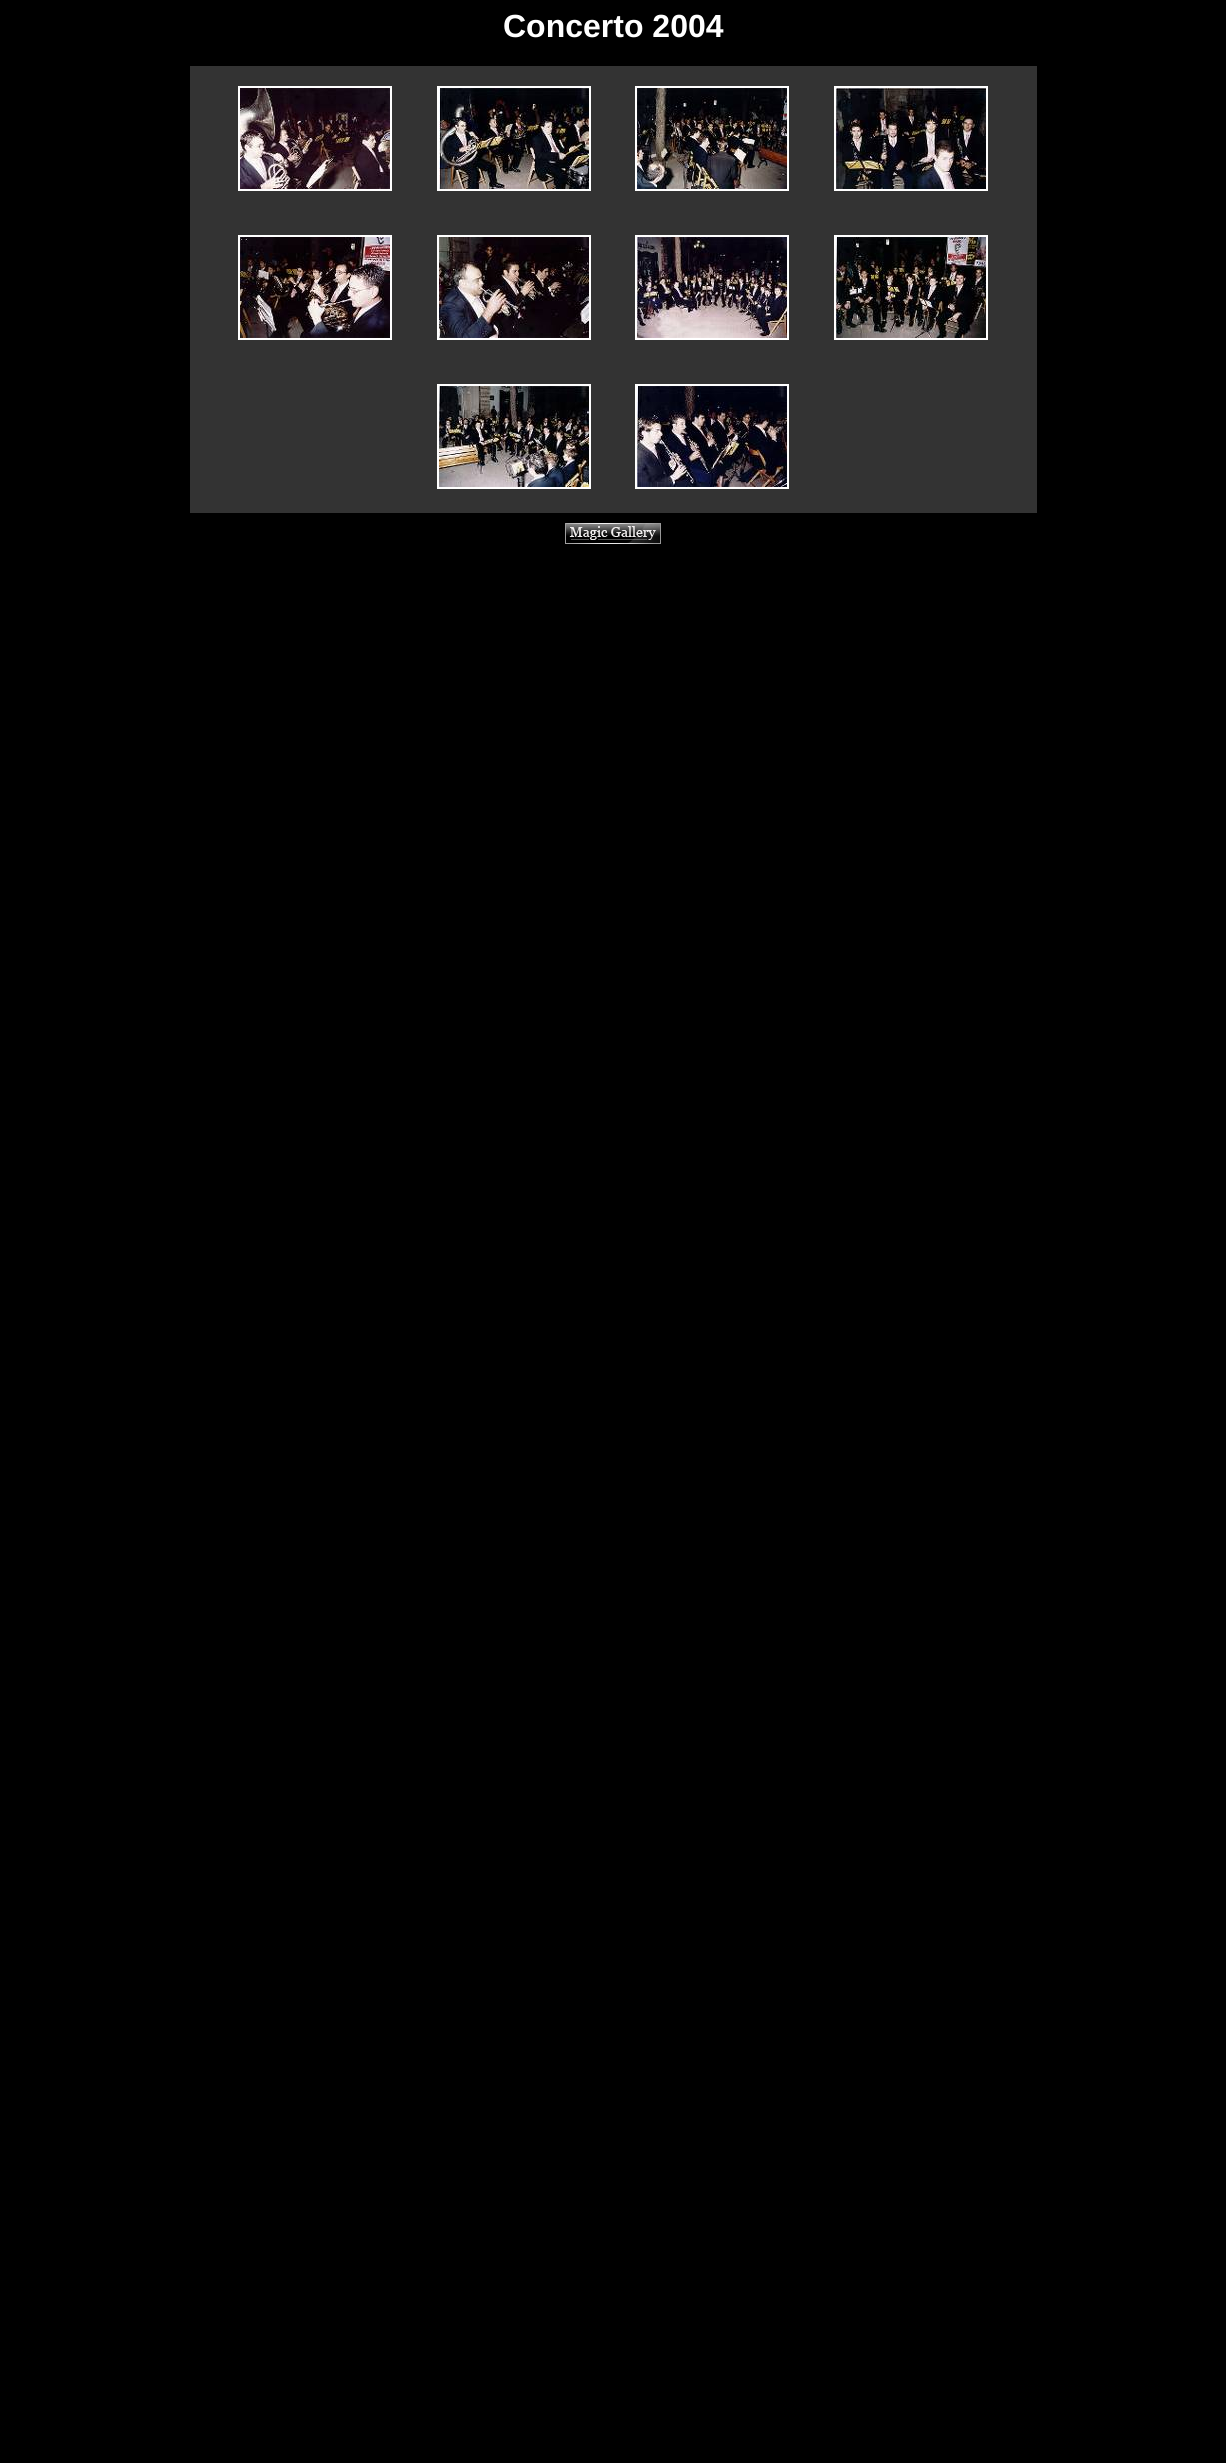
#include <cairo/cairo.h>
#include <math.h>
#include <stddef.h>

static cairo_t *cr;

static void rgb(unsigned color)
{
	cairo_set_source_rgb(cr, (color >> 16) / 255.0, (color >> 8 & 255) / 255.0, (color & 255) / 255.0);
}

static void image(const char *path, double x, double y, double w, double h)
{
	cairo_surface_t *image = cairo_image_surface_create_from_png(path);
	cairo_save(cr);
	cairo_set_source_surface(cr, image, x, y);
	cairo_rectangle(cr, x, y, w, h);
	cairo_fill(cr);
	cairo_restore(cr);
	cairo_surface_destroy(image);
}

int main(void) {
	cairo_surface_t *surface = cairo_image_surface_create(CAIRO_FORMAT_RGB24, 1226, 2463);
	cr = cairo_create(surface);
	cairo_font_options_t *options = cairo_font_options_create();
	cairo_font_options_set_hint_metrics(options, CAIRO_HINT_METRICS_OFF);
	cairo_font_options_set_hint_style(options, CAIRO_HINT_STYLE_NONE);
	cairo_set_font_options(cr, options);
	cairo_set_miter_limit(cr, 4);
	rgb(0x000000);
	cairo_paint(cr);
	rgb(0x333333);
	cairo_rectangle(cr, 190, 66, 847, 447);
	cairo_fill(cr);
	cairo_rectangle(cr, 239, 87, 152, 103);
	rgb(0xffffff);
	cairo_stroke(cr);
	cairo_rectangle(cr, 438, 87, 152, 103);
	cairo_stroke(cr);
	cairo_rectangle(cr, 636, 87, 152, 103);
	cairo_stroke(cr);
	cairo_rectangle(cr, 835, 87, 152, 103);
	cairo_stroke(cr);
	image("img/1.png", 240, 88, 150, 101);
	image("img/2.png", 439, 88, 150, 101);
	image("img/3.png", 637, 88, 150, 101);
	image("img/4.png", 836, 88, 150, 101);
	cairo_rectangle(cr, 239, 236, 152, 103);
	cairo_stroke(cr);
	cairo_rectangle(cr, 438, 236, 152, 103);
	cairo_stroke(cr);
	cairo_rectangle(cr, 636, 236, 152, 103);
	cairo_stroke(cr);
	cairo_rectangle(cr, 835, 236, 152, 103);
	cairo_stroke(cr);
	image("img/5.png", 240, 237, 150, 101);
	image("img/6.png", 439, 237, 150, 101);
	image("img/7.png", 637, 237, 150, 101);
	image("img/8.png", 836, 237, 150, 101);
	cairo_rectangle(cr, 438, 385, 152, 103);
	cairo_stroke(cr);
	cairo_rectangle(cr, 636, 385, 152, 103);
	cairo_stroke(cr);
	image("img/9.png", 439, 386, 150, 101);
	image("img/10.png", 637, 386, 150, 101);
	image("img/11.png", 565, 523, 96, 21);
	cairo_select_font_face(cr, "Liberation Sans", CAIRO_FONT_SLANT_NORMAL, CAIRO_FONT_WEIGHT_BOLD);
	cairo_set_font_size(cr, 32);
	cairo_move_to(cr, 503, 37);
	cairo_show_text(cr, "Concerto 2004");
	cairo_surface_write_to_png(surface, "page.png");
	cairo_font_options_destroy(options);
	cairo_destroy(cr);
	cairo_surface_destroy(surface);
	return 0;
}
